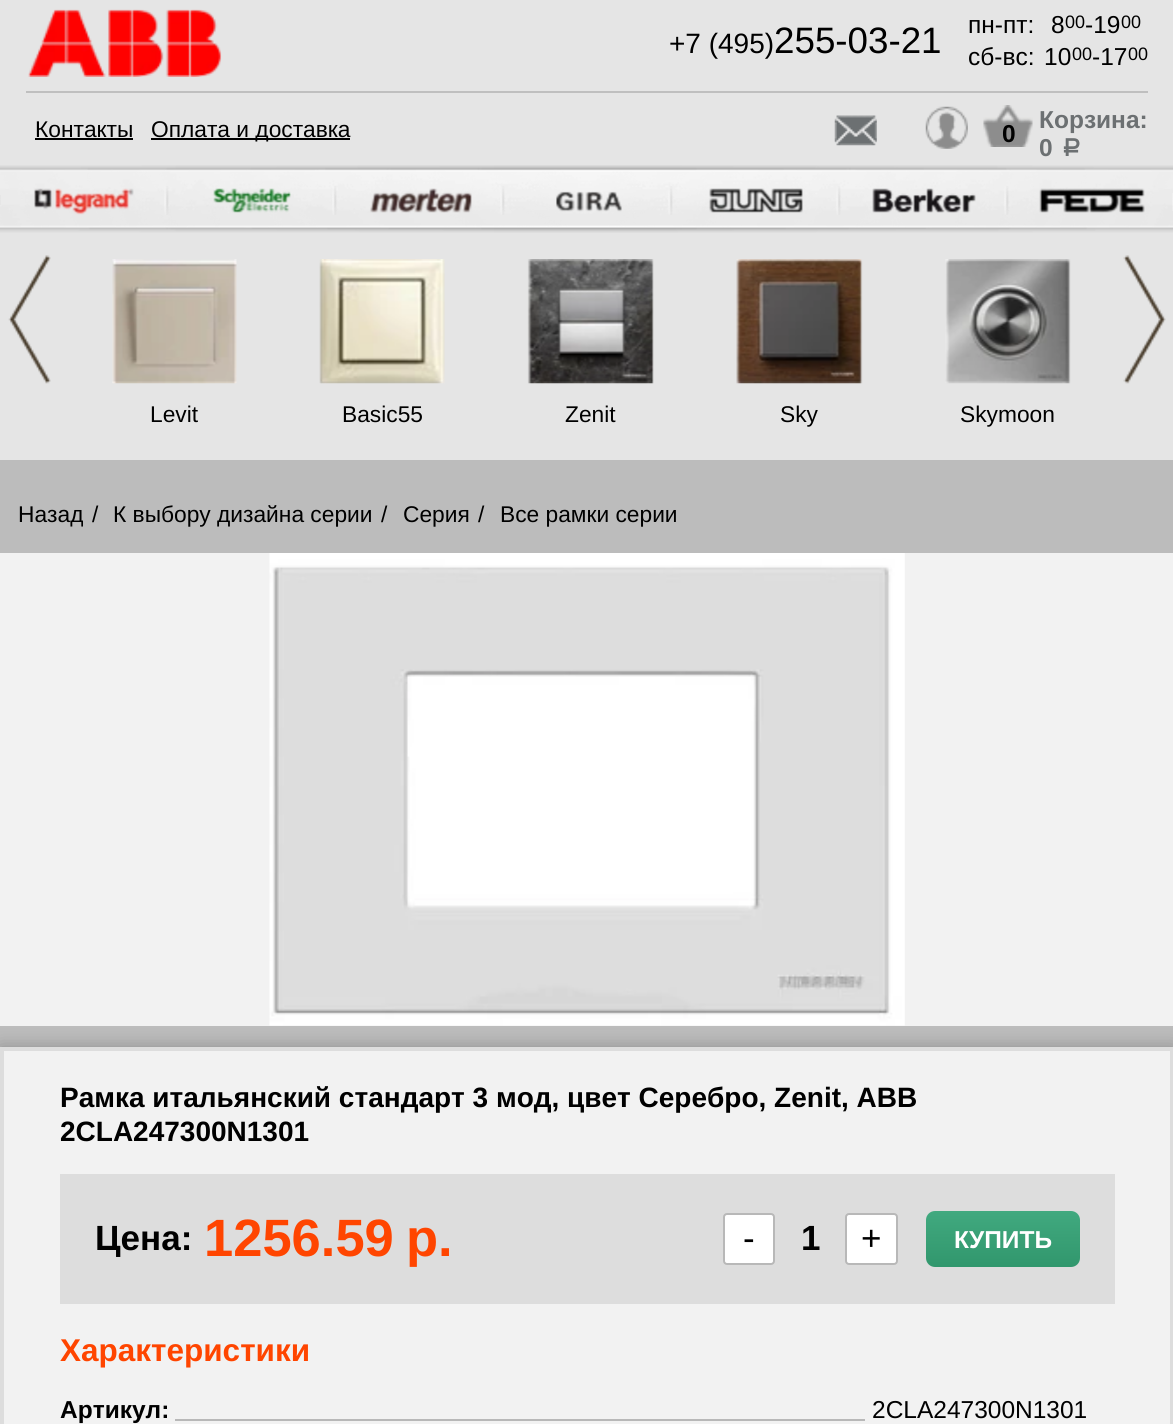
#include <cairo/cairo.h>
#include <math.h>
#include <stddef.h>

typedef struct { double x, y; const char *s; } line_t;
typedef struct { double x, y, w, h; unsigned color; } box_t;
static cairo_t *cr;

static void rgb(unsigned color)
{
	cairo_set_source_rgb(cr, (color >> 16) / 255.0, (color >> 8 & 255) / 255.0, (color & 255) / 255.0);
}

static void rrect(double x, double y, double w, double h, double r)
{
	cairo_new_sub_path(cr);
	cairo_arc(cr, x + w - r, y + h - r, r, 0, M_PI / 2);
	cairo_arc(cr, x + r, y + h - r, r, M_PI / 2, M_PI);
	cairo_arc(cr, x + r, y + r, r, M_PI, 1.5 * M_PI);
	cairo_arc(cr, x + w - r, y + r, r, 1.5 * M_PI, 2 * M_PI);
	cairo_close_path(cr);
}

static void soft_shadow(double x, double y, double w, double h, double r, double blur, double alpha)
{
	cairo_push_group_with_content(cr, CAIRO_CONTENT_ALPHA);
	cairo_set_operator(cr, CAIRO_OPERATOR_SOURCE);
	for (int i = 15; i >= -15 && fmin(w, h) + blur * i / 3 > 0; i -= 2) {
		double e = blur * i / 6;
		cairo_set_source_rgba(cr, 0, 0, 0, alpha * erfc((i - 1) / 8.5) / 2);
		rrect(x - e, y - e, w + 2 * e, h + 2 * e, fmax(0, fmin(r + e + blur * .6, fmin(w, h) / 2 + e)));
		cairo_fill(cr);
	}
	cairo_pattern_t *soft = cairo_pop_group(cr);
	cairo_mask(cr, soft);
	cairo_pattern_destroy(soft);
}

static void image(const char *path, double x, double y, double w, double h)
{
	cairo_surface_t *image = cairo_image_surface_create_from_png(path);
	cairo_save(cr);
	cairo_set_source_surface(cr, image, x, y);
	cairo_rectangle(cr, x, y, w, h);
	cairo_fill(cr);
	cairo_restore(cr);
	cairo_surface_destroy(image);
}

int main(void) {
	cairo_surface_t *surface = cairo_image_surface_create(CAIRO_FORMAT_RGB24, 1173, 1424);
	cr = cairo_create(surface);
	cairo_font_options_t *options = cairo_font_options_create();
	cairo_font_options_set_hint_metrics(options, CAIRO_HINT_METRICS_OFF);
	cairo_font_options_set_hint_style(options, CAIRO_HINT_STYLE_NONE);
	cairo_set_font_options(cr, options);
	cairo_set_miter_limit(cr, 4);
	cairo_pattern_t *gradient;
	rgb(0xbcbcbc);
	cairo_paint(cr);
	rgb(0xe5e5e5);
	cairo_rectangle(cr, 0, 0, 1173, 460);
	cairo_fill(cr);
	image("img/1.png", 28, 9, 194, 68);
	{
		static const box_t items[] = {
			{26, 91, 1122, 2, 0xbfbfbf},
			{35, 138, 98, 2, 0x000000},
			{151, 138, 199, 2, 0x000000},
		};
		for (size_t i = 0; i < sizeof items / sizeof *items; i++) {
			rgb(items[i].color);
			cairo_rectangle(cr, items[i].x, items[i].y, items[i].w, items[i].h);
			cairo_fill(cr);
		}
	}
	image("img/2.png", 834, 115, 43, 31);
	image("img/3.png", 925, 106, 43, 43);
	image("img/4.png", 983, 105, 50, 42);
	image("img/5.png", 0, 165, 1173, 68);
	image("img/6.png", 0, 195, 1, 10);
	image("img/7.png", 34, 188, 100, 27);
	image("img/8.png", 164, 186, 5, 29);
	image("img/9.png", 213, 188, 78, 25);
	image("img/10.png", 332, 186, 5, 29);
	image("img/11.png", 370, 188, 102, 25);
	image("img/12.png", 500, 186, 5, 29);
	image("img/13.png", 556, 191, 66, 21);
	image("img/14.png", 668, 186, 5, 29);
	image("img/15.png", 709, 188, 94, 25);
	image("img/16.png", 836, 186, 5, 29);
	image("img/17.png", 872, 188, 104, 25);
	image("img/18.png", 1004, 186, 5, 29);
	image("img/19.png", 1039, 188, 106, 25);
	image("img/20.png", 1172, 193, 1, 18);
	image("img/21.png", 8, 255, 43, 129);
	image("img/22.png", 1123, 255, 43, 129);
	image("img/23.png", 112, 259, 125, 125);
	image("img/24.png", 319, 259, 126, 125);
	image("img/25.png", 527, 259, 127, 125);
	image("img/26.png", 736, 259, 127, 125);
	image("img/27.png", 945, 259, 126, 125);
	rgb(0xf2f2f2);
	cairo_rectangle(cr, 0, 553, 1173, 473);
	cairo_fill(cr);
	image("img/28.png", 269, 553, 636, 473);
	rgb(0x000000);
	soft_shadow(0, 1047, 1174, 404, 0, 9, 0.25);
	rgb(0xf2f2f2);
	cairo_rectangle(cr, 2, 1049, 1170, 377);
	cairo_fill_preserve(cr);
	rgb(0xdddddd);
	cairo_set_line_width(cr, 4);
	cairo_stroke(cr);
	cairo_rectangle(cr, 60, 1174, 1055, 130);
	cairo_fill(cr);
	rgb(0xffffff);
	rrect(724, 1214, 50, 50, 3);
	cairo_fill_preserve(cr);
	rgb(0xb8b8b8);
	cairo_set_line_width(cr, 2);
	cairo_stroke(cr);
	rgb(0xffffff);
	rrect(846, 1214, 51, 50, 3);
	cairo_fill_preserve(cr);
	rgb(0xb8b8b8);
	cairo_stroke(cr);
	gradient = cairo_pattern_create_linear(1003, 1211, 1003, 1267);
	cairo_pattern_add_color_stop_rgba(gradient, 0, 0.255, 0.663, 0.498, 1);
	cairo_pattern_add_color_stop_rgba(gradient, 1, 0.192, 0.592, 0.427, 1);
	cairo_set_source(cr, gradient);
	cairo_pattern_destroy(gradient);
	rrect(926, 1211, 154, 56, 9);
	cairo_fill(cr);
	rgb(0xb8b8b8);
	cairo_rectangle(cr, 175, 1419, 690, 2);
	cairo_fill(cr);
	cairo_select_font_face(cr, "Liberation Sans", CAIRO_FONT_SLANT_NORMAL, CAIRO_FONT_WEIGHT_NORMAL);
	cairo_set_font_size(cr, 28);
	rgb(0x000000);
	cairo_move_to(cr, 669, 53);
	cairo_show_text(cr, "+7 (495)");
	cairo_set_font_size(cr, 36.75);
	cairo_move_to(cr, 774, 53);
	cairo_show_text(cr, "255-03-21");
	cairo_set_font_size(cr, 24.5);
	cairo_move_to(cr, 968, 33);
	cairo_show_text(cr, "пн-пт:");
	cairo_move_to(cr, 1051, 33);
	cairo_show_text(cr, "8");
	cairo_set_font_size(cr, 18);
	cairo_move_to(cr, 1065, 28);
	cairo_show_text(cr, "00");
	cairo_set_font_size(cr, 24.5);
	cairo_move_to(cr, 1085, 33);
	cairo_show_text(cr, "-19");
	cairo_set_font_size(cr, 18);
	cairo_move_to(cr, 1121, 28);
	cairo_show_text(cr, "00");
	cairo_set_font_size(cr, 24.5);
	cairo_move_to(cr, 968, 65);
	cairo_show_text(cr, "сб-вс:");
	cairo_move_to(cr, 1044, 65);
	cairo_show_text(cr, "10");
	cairo_set_font_size(cr, 18);
	cairo_move_to(cr, 1072, 60);
	cairo_show_text(cr, "00");
	cairo_set_font_size(cr, 24.5);
	cairo_move_to(cr, 1092, 65);
	cairo_show_text(cr, "-17");
	cairo_set_font_size(cr, 18);
	cairo_move_to(cr, 1128, 60);
	cairo_show_text(cr, "00");
	cairo_set_font_size(cr, 22.75);
	cairo_move_to(cr, 35, 137);
	cairo_show_text(cr, "Контакты");
	cairo_move_to(cr, 151, 137);
	cairo_show_text(cr, "Оплата и доставка");
	cairo_select_font_face(cr, "Liberation Sans", CAIRO_FONT_SLANT_NORMAL, CAIRO_FONT_WEIGHT_BOLD);
	cairo_set_font_size(cr, 24.5);
	cairo_move_to(cr, 1002, 142);
	cairo_show_text(cr, "0");
	rgb(0x6c7072);
	cairo_move_to(cr, 1039, 128);
	cairo_show_text(cr, "Корзина:");
	cairo_move_to(cr, 1039, 156);
	cairo_show_text(cr, "0");
	cairo_select_font_face(cr, "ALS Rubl", CAIRO_FONT_SLANT_NORMAL, CAIRO_FONT_WEIGHT_BOLD);
	cairo_move_to(cr, 1060, 156);
	cairo_show_text(cr, "a");
	cairo_select_font_face(cr, "Liberation Sans", CAIRO_FONT_SLANT_NORMAL, CAIRO_FONT_WEIGHT_NORMAL);
	cairo_set_font_size(cr, 22.75);
	rgb(0x000000);
	{
		static const line_t items[] = {
			{150, 422, "Levit"},
			{342, 422, "Basic55"},
			{565, 422, "Zenit"},
			{780, 422, "Sky"},
			{960, 422, "Skymoon"},
			{18, 522, "Назад"},
			{92, 522, "/"},
			{113, 522, "К выбору дизайна серии"},
			{381, 522, "/"},
			{403, 522, "Серия"},
			{478, 522, "/"},
			{500, 522, "Все рамки серии"},
		};
		for (size_t i = 0; i < sizeof items / sizeof *items; i++) {
			cairo_move_to(cr, items[i].x, items[i].y);
			cairo_show_text(cr, items[i].s);
		}
	}
	cairo_select_font_face(cr, "Liberation Sans", CAIRO_FONT_SLANT_NORMAL, CAIRO_FONT_WEIGHT_BOLD);
	cairo_set_font_size(cr, 28);
	cairo_move_to(cr, 60, 1107);
	cairo_show_text(cr, "Рамка итальянский стандарт 3 мод, цвет Серебро, Zenit, ABB");
	cairo_move_to(cr, 60, 1141);
	cairo_show_text(cr, "2CLA247300N1301");
	cairo_set_font_size(cr, 35);
	cairo_move_to(cr, 95, 1250);
	cairo_show_text(cr, "Цена:");
	cairo_set_font_size(cr, 52.5);
	rgb(0xff4500);
	cairo_move_to(cr, 204, 1256);
	cairo_show_text(cr, "1256.59");
	cairo_move_to(cr, 406, 1256);
	cairo_show_text(cr, "р.");
	cairo_select_font_face(cr, "Liberation Sans", CAIRO_FONT_SLANT_NORMAL, CAIRO_FONT_WEIGHT_NORMAL);
	cairo_set_font_size(cr, 35);
	rgb(0x000000);
	cairo_move_to(cr, 743, 1250);
	cairo_show_text(cr, "-");
	cairo_select_font_face(cr, "Liberation Sans", CAIRO_FONT_SLANT_NORMAL, CAIRO_FONT_WEIGHT_BOLD);
	cairo_move_to(cr, 801, 1250);
	cairo_show_text(cr, "1");
	cairo_select_font_face(cr, "Liberation Sans", CAIRO_FONT_SLANT_NORMAL, CAIRO_FONT_WEIGHT_NORMAL);
	cairo_move_to(cr, 861, 1250);
	cairo_show_text(cr, "+");
	cairo_select_font_face(cr, "Liberation Sans", CAIRO_FONT_SLANT_NORMAL, CAIRO_FONT_WEIGHT_BOLD);
	cairo_set_font_size(cr, 24.5);
	rgb(0xffffff);
	cairo_move_to(cr, 954, 1248);
	cairo_show_text(cr, "КУПИТЬ");
	cairo_set_font_size(cr, 31.5);
	rgb(0xff4500);
	cairo_move_to(cr, 60, 1361);
	cairo_show_text(cr, "Характеристики");
	cairo_set_font_size(cr, 24.5);
	rgb(0x000000);
	cairo_move_to(cr, 60, 1418);
	cairo_show_text(cr, "Артикул:");
	cairo_select_font_face(cr, "Liberation Sans", CAIRO_FONT_SLANT_NORMAL, CAIRO_FONT_WEIGHT_NORMAL);
	cairo_move_to(cr, 872, 1418);
	cairo_show_text(cr, "2CLA247300N1301");
	cairo_surface_write_to_png(surface, "page.png");
	cairo_font_options_destroy(options);
	cairo_destroy(cr);
	cairo_surface_destroy(surface);
	return 0;
}
